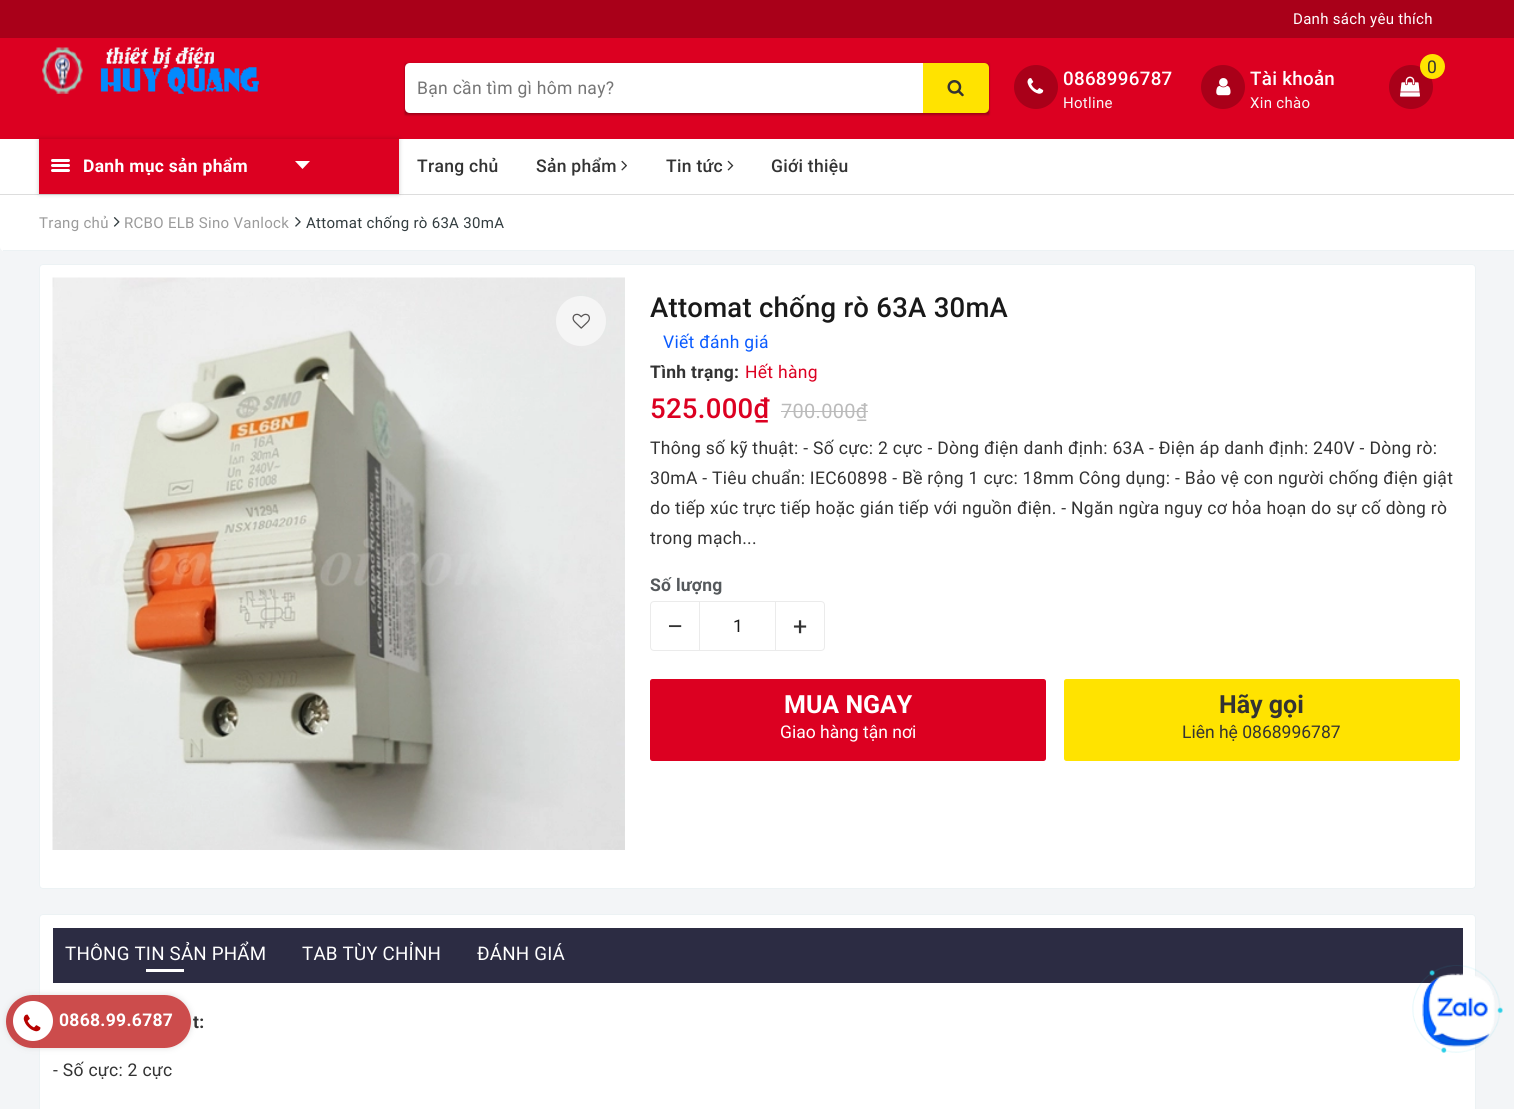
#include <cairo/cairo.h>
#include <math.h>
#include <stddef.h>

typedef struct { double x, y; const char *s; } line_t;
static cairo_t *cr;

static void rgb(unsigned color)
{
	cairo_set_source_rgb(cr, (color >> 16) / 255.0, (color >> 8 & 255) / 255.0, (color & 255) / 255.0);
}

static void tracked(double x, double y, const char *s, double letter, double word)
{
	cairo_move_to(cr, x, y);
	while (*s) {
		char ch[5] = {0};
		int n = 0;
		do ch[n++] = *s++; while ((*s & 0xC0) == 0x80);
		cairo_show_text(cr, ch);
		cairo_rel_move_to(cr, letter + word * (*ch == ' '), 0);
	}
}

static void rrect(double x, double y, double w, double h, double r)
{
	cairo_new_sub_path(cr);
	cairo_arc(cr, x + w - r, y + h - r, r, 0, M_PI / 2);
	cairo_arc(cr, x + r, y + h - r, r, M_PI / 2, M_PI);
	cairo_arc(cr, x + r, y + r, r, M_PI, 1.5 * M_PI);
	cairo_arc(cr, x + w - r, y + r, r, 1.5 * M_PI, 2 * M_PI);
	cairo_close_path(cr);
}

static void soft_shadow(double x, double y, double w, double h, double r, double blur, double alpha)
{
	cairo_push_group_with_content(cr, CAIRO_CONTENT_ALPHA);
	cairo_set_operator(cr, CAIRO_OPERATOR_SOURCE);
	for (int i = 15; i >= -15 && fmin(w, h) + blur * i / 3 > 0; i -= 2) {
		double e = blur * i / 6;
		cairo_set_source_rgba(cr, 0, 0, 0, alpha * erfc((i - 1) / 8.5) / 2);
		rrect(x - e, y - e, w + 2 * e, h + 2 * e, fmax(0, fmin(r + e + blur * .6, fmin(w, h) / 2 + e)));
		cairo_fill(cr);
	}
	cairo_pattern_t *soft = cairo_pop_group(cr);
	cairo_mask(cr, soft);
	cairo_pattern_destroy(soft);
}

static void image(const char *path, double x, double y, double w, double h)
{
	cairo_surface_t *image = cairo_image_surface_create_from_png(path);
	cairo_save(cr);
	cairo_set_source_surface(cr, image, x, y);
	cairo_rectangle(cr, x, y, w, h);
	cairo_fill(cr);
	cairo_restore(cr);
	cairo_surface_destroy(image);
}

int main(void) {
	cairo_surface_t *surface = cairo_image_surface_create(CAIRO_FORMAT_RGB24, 1514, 1109);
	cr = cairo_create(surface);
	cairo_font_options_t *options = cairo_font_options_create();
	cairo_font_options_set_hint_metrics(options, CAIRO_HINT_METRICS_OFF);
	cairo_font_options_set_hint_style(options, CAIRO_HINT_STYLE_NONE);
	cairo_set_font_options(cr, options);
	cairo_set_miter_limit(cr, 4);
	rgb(0xf3f5f7);
	cairo_paint(cr);
	rgb(0xdc0021);
	cairo_rectangle(cr, 0, 38, 1514, 101);
	cairo_fill(cr);
	rgb(0xa90019);
	cairo_rectangle(cr, 0, 0, 1514, 38);
	cairo_fill(cr);
	image("img/1.png", 42, 47, 217, 47);
	rgb(0x000000);
	soft_shadow(405, 65, 584, 50, 0, 1, 0.24);
	soft_shadow(405, 63, 584, 50, 0, 1, 0.12);
	rgb(0xffffff);
	cairo_new_path(cr);
	cairo_move_to(cr, 410, 63);
	cairo_line_to(cr, 924, 63);
	cairo_line_to(cr, 924, 113);
	cairo_line_to(cr, 410, 113);
	cairo_curve_to(cr, 407, 113, 405, 111, 405, 108);
	cairo_line_to(cr, 405, 68);
	cairo_curve_to(cr, 405, 65, 407, 63, 410, 63);
	cairo_close_path(cr);
	cairo_fill(cr);
	rgb(0xffe300);
	cairo_new_path(cr);
	cairo_move_to(cr, 923, 63);
	cairo_line_to(cr, 984, 63);
	cairo_curve_to(cr, 987, 63, 989, 65, 989, 68);
	cairo_line_to(cr, 989, 108);
	cairo_curve_to(cr, 989, 111, 987, 113, 984, 113);
	cairo_line_to(cr, 923, 113);
	cairo_close_path(cr);
	cairo_fill(cr);
	image("img/2.png", 947, 80, 17, 17);
	rgb(0xa90019);
	cairo_arc(cr, 1411, 87, 22, 0, 2 * M_PI);
	cairo_fill(cr);
	rgb(0xffe300);
	cairo_arc(cr, 1432.5, 66.5, 12.5, 0, 2 * M_PI);
	cairo_fill(cr);
	image("img/3.png", 1400, 76, 20, 21);
	rgb(0xa90019);
	cairo_arc(cr, 1036, 87, 22, 0, 2 * M_PI);
	cairo_fill(cr);
	image("img/4.png", 1027, 78, 17, 16);
	cairo_arc(cr, 1223, 87, 22, 0, 2 * M_PI);
	cairo_fill(cr);
	image("img/5.png", 1216, 78, 15, 18);
	rgb(0xffffff);
	cairo_rectangle(cr, 0, 139, 1514, 55);
	cairo_fill(cr);
	rgb(0xdddddd);
	cairo_rectangle(cr, 0, 194, 1514, 1);
	cairo_fill(cr);
	rgb(0xffffff);
	cairo_new_path(cr);
	cairo_move_to(cr, 0, 195);
	cairo_line_to(cr, 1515, 195);
	cairo_line_to(cr, 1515, 247);
	cairo_curve_to(cr, 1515, 249, 1513, 251, 1511, 251);
	cairo_line_to(cr, 4, 251);
	cairo_curve_to(cr, 2, 251, 0, 249, 0, 247);
	cairo_close_path(cr);
	cairo_fill(cr);
	rgb(0x000000);
	soft_shadow(39, 139, 360, 55, 0, 2.5, 0.2);
	rgb(0xdc0021);
	cairo_rectangle(cr, 39, 139, 360, 55);
	cairo_fill(cr);
	rgb(0xffffff);
	rrect(51, 159, 19, 3, 1.5);
	cairo_fill(cr);
	rrect(51, 164, 19, 3, 1.5);
	cairo_fill(cr);
	rrect(51, 169, 19, 3, 1.5);
	cairo_fill(cr);
	cairo_new_path(cr);
	cairo_move_to(cr, 295, 161);
	cairo_line_to(cr, 310, 161);
	cairo_line_to(cr, 302.5, 169);
	cairo_close_path(cr);
	cairo_fill(cr);
	image("img/6.png", 621, 160, 6, 11);
	image("img/7.png", 727, 160, 7, 11);
	rgb(0xecf2f4);
	cairo_rectangle(cr, 3, 250, 1511, 1);
	cairo_fill(cr);
	image("img/8.png", 113, 217, 7, 10);
	image("img/9.png", 295, 217, 6, 10);
	rgb(0xffffff);
	rrect(39.5, 264.5, 1436, 624, 3.5);
	cairo_fill_preserve(cr);
	rgb(0xecf2f4);
	cairo_set_line_width(cr, 1);
	cairo_stroke(cr);
	image("img/10.png", 52, 277, 573, 573);
	rgb(0xf5f5f5);
	cairo_arc(cr, 581, 321, 25, 0, 2 * M_PI);
	cairo_fill(cr);
	image("img/11.png", 572, 313, 18, 16);
	rgb(0xbbbbbb);
	cairo_rectangle(cr, 781, 411, 87, 1);
	cairo_fill(cr);
	cairo_new_path(cr);
	cairo_move_to(cr, 654, 601.5);
	cairo_line_to(cr, 699.5, 601.5);
	cairo_line_to(cr, 699.5, 650.5);
	cairo_line_to(cr, 654, 650.5);
	cairo_curve_to(cr, 652, 650.5, 650.5, 649, 650.5, 647);
	cairo_line_to(cr, 650.5, 605);
	cairo_curve_to(cr, 650.5, 603, 652, 601.5, 654, 601.5);
	cairo_close_path(cr);
	rgb(0xebebeb);
	cairo_stroke(cr);
	cairo_rectangle(cr, 700, 601, 75, 1);
	cairo_fill(cr);
	cairo_rectangle(cr, 700, 650, 75, 1);
	cairo_fill(cr);
	cairo_new_path(cr);
	cairo_move_to(cr, 775.5, 601.5);
	cairo_line_to(cr, 821, 601.5);
	cairo_curve_to(cr, 823, 601.5, 824.5, 603, 824.5, 605);
	cairo_line_to(cr, 824.5, 647);
	cairo_curve_to(cr, 824.5, 649, 823, 650.5, 821, 650.5);
	cairo_line_to(cr, 775.5, 650.5);
	cairo_close_path(cr);
	cairo_stroke(cr);
	rgb(0xdc0021);
	rrect(650, 679, 396, 82, 2.5);
	cairo_fill(cr);
	rgb(0xffe300);
	rrect(1064, 679, 396, 82, 2.5);
	cairo_fill(cr);
	rgb(0xffffff);
	rrect(39.5, 914.5, 1436, 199, 3.5);
	cairo_fill_preserve(cr);
	rgb(0xecf2f4);
	cairo_stroke(cr);
	rgb(0x2c2c43);
	cairo_rectangle(cr, 53, 928, 1410, 55);
	cairo_fill(cr);
	rgb(0xffffff);
	cairo_rectangle(cr, 146, 969, 38, 3);
	cairo_fill(cr);
	image("img/12.png", 1412, 965, 91, 88);
	image("img/13.png", 1422, 973, 73, 74);
	cairo_save(cr);
	cairo_set_fill_rule(cr, CAIRO_FILL_RULE_EVEN_ODD);
	cairo_new_path(cr);
	cairo_move_to(cr, 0, 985);
	cairo_line_to(cr, 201, 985);
	cairo_line_to(cr, 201, 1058);
	cairo_line_to(cr, 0, 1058);
	cairo_close_path(cr);
	cairo_move_to(cr, 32.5, 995);
	cairo_line_to(cr, 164.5, 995);
	cairo_curve_to(cr, 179, 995, 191, 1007, 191, 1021.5);
	cairo_curve_to(cr, 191, 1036, 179, 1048, 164.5, 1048);
	cairo_line_to(cr, 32.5, 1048);
	cairo_curve_to(cr, 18, 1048, 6, 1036, 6, 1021.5);
	cairo_curve_to(cr, 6, 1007, 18, 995, 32.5, 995);
	cairo_close_path(cr);
	cairo_clip(cr);
	rgb(0xdddddd);
	soft_shadow(6, 995, 185, 53, 26.5, 3, 1);
	cairo_restore(cr);
	cairo_set_source_rgba(cr, 0.718, 0.004, 0, 0.7);
	rrect(6, 995, 185, 53, 26.5);
	cairo_fill(cr);
	rgb(0xffffff);
	cairo_arc(cr, 33, 1021, 20, 0, 2 * M_PI);
	cairo_fill(cr);
	image("img/14.png", 23, 1014, 18, 18);
	cairo_select_font_face(cr, "Roboto", CAIRO_FONT_SLANT_NORMAL, CAIRO_FONT_WEIGHT_NORMAL);
	cairo_set_font_size(cr, 15);
	tracked(1293, 24, "Danh sách yêu thích", 0.3, 0);
	cairo_set_font_size(cr, 17.5);
	rgb(0x757575);
	tracked(417, 94, "Bạn cần tìm gì hôm nay?", 0.3, 0);
	rgb(0x333333);
	tracked(1427, 73, "0", 0.3, 0);
	cairo_select_font_face(cr, "Roboto Medium", CAIRO_FONT_SLANT_NORMAL, CAIRO_FONT_WEIGHT_NORMAL);
	cairo_set_font_size(cr, 18.75);
	rgb(0xffffff);
	tracked(1063, 85, "0868996787", 0.3, 0);
	cairo_select_font_face(cr, "Roboto", CAIRO_FONT_SLANT_NORMAL, CAIRO_FONT_WEIGHT_NORMAL);
	cairo_set_font_size(cr, 15);
	rgb(0xf7f7f7);
	tracked(1063, 108, "Hotline", 0.3, 0);
	cairo_select_font_face(cr, "Roboto Medium", CAIRO_FONT_SLANT_NORMAL, CAIRO_FONT_WEIGHT_NORMAL);
	cairo_set_font_size(cr, 18.75);
	rgb(0xffffff);
	tracked(1250, 85, "Tài khoản", 0.3, 0);
	cairo_select_font_face(cr, "Roboto", CAIRO_FONT_SLANT_NORMAL, CAIRO_FONT_WEIGHT_NORMAL);
	cairo_set_font_size(cr, 15);
	rgb(0xf7f7f7);
	tracked(1250, 108, "Xin chào", 0.3, 0);
	cairo_select_font_face(cr, "Roboto", CAIRO_FONT_SLANT_NORMAL, CAIRO_FONT_WEIGHT_BOLD);
	cairo_set_font_size(cr, 17.5);
	rgb(0xffffff);
	tracked(83, 172, "Danh mục sản phẩm", 0.3, 0);
	cairo_select_font_face(cr, "Roboto Medium", CAIRO_FONT_SLANT_NORMAL, CAIRO_FONT_WEIGHT_NORMAL);
	rgb(0x333333);
	{
		static const line_t items[] = {
			{417, 172, "Trang chủ"},
			{536, 172, "Sản phẩm"},
			{666, 172, "Tin tức"},
			{771, 172, "Giới thiệu"},
		};
		for (size_t i = 0; i < sizeof items / sizeof *items; i++) {
			tracked(items[i].x, items[i].y, items[i].s, 0.3, 0);
		}
	}
	cairo_select_font_face(cr, "Roboto", CAIRO_FONT_SLANT_NORMAL, CAIRO_FONT_WEIGHT_NORMAL);
	cairo_set_font_size(cr, 15);
	rgb(0x9b9b9b);
	tracked(39, 228, "Trang chủ", 0.3, 0);
	tracked(124, 228, "RCBO ELB Sino Vanlock", 0.3, 0);
	rgb(0x323c3f);
	tracked(306, 228, "Attomat chống rò 63A 30mA", 0.3, 0);
	cairo_select_font_face(cr, "Roboto Medium", CAIRO_FONT_SLANT_NORMAL, CAIRO_FONT_WEIGHT_NORMAL);
	cairo_set_font_size(cr, 27.5);
	rgb(0x191919);
	tracked(650, 317, "Attomat chống rò 63A 30mA", 0.25, 0);
	cairo_select_font_face(cr, "Roboto", CAIRO_FONT_SLANT_NORMAL, CAIRO_FONT_WEIGHT_NORMAL);
	cairo_set_font_size(cr, 17.5);
	rgb(0x0a5bff);
	tracked(663, 348, "Viết đánh giá", 0.3, 0);
	cairo_select_font_face(cr, "Roboto", CAIRO_FONT_SLANT_NORMAL, CAIRO_FONT_WEIGHT_BOLD);
	rgb(0x333333);
	tracked(650, 378, "Tình trạng:", 0.3, 0);
	cairo_select_font_face(cr, "Roboto", CAIRO_FONT_SLANT_NORMAL, CAIRO_FONT_WEIGHT_NORMAL);
	rgb(0xdc0021);
	tracked(745, 378, "Hết hàng", 0.3, 0);
	cairo_select_font_face(cr, "Roboto Medium", CAIRO_FONT_SLANT_NORMAL, CAIRO_FONT_WEIGHT_NORMAL);
	cairo_set_font_size(cr, 27.5);
	tracked(650, 418, "525.000₫", 0.3, 0);
	cairo_select_font_face(cr, "Roboto", CAIRO_FONT_SLANT_NORMAL, CAIRO_FONT_WEIGHT_NORMAL);
	cairo_set_font_size(cr, 20);
	rgb(0xbbbbbb);
	tracked(781, 418, "700.000₫", 0.3, 0);
	cairo_set_font_size(cr, 17.5);
	rgb(0x333333);
	{
		static const line_t items[] = {
			{650, 454, "Thông số kỹ thuật: - Số cực: 2 cực - Dòng điện danh định: 63A - Điện áp danh định: 240V - Dòng rò:"},
			{650, 484, "30mA - Tiêu chuẩn: IEC60898 - Bề rộng 1 cực: 18mm Công dụng: - Bảo vệ con người chống điện giật"},
			{650, 514, "do tiếp xúc trực tiếp hoặc gián tiếp với nguồn điện. - Ngăn ngừa nguy cơ hỏa hoạn do sự cố dòng rò"},
			{650, 544, "trong mạch..."},
		};
		for (size_t i = 0; i < sizeof items / sizeof *items; i++) {
			tracked(items[i].x, items[i].y, items[i].s, 0.3, 0);
		}
	}
	cairo_select_font_face(cr, "Roboto", CAIRO_FONT_SLANT_NORMAL, CAIRO_FONT_WEIGHT_BOLD);
	rgb(0x55595c);
	tracked(650, 591, "Số lượng", 0.3, 0);
	cairo_select_font_face(cr, "Roboto", CAIRO_FONT_SLANT_NORMAL, CAIRO_FONT_WEIGHT_NORMAL);
	cairo_set_font_size(cr, 25);
	rgb(0x333333);
	tracked(667, 635, "–", 0.3, 0);
	cairo_set_font_size(cr, 17.5);
	rgb(0x191919);
	tracked(733, 632, "1", 0.3, 0);
	cairo_set_font_size(cr, 25);
	rgb(0x333333);
	tracked(793, 635, "+", 0.3, 0);
	cairo_select_font_face(cr, "Roboto", CAIRO_FONT_SLANT_NORMAL, CAIRO_FONT_WEIGHT_BOLD);
	rgb(0xffffff);
	cairo_move_to(cr, 784, 713);
	cairo_show_text(cr, "MUA NGAY");
	cairo_select_font_face(cr, "Roboto", CAIRO_FONT_SLANT_NORMAL, CAIRO_FONT_WEIGHT_NORMAL);
	cairo_set_font_size(cr, 17.5);
	cairo_move_to(cr, 780, 738);
	cairo_show_text(cr, "Giao hàng tận nơi");
	cairo_select_font_face(cr, "Roboto", CAIRO_FONT_SLANT_NORMAL, CAIRO_FONT_WEIGHT_BOLD);
	cairo_set_font_size(cr, 25);
	rgb(0x333333);
	cairo_move_to(cr, 1219, 713);
	cairo_show_text(cr, "Hãy gọi");
	cairo_select_font_face(cr, "Roboto", CAIRO_FONT_SLANT_NORMAL, CAIRO_FONT_WEIGHT_NORMAL);
	cairo_set_font_size(cr, 17.5);
	cairo_move_to(cr, 1182, 738);
	cairo_show_text(cr, "Liên hệ 0868996787");
	cairo_set_font_size(cr, 18.75);
	rgb(0xffffff);
	{
		static const line_t items[] = {
			{65, 960, "THÔNG TIN SẢN PHẨM"},
			{302, 960, "TAB TÙY CHỈNH"},
			{477, 960, "ĐÁNH GIÁ"},
		};
		for (size_t i = 0; i < sizeof items / sizeof *items; i++) {
			tracked(items[i].x, items[i].y, items[i].s, 0.2, 0);
		}
	}
	cairo_select_font_face(cr, "Roboto", CAIRO_FONT_SLANT_NORMAL, CAIRO_FONT_WEIGHT_BOLD);
	cairo_set_font_size(cr, 17.5);
	rgb(0x333333);
	tracked(193, 1028, "t:", 0.3, 0);
	cairo_select_font_face(cr, "Roboto", CAIRO_FONT_SLANT_NORMAL, CAIRO_FONT_WEIGHT_NORMAL);
	tracked(53, 1076, "- Số cực: 2 cực", 0.3, 0);
	cairo_select_font_face(cr, "Roboto", CAIRO_FONT_SLANT_NORMAL, CAIRO_FONT_WEIGHT_BOLD);
	rgb(0xffffff);
	tracked(59, 1026, "0868.99.6787", 0.3, 0);
	cairo_surface_write_to_png(surface, "page.png");
	cairo_font_options_destroy(options);
	cairo_destroy(cr);
	cairo_surface_destroy(surface);
	return 0;
}
